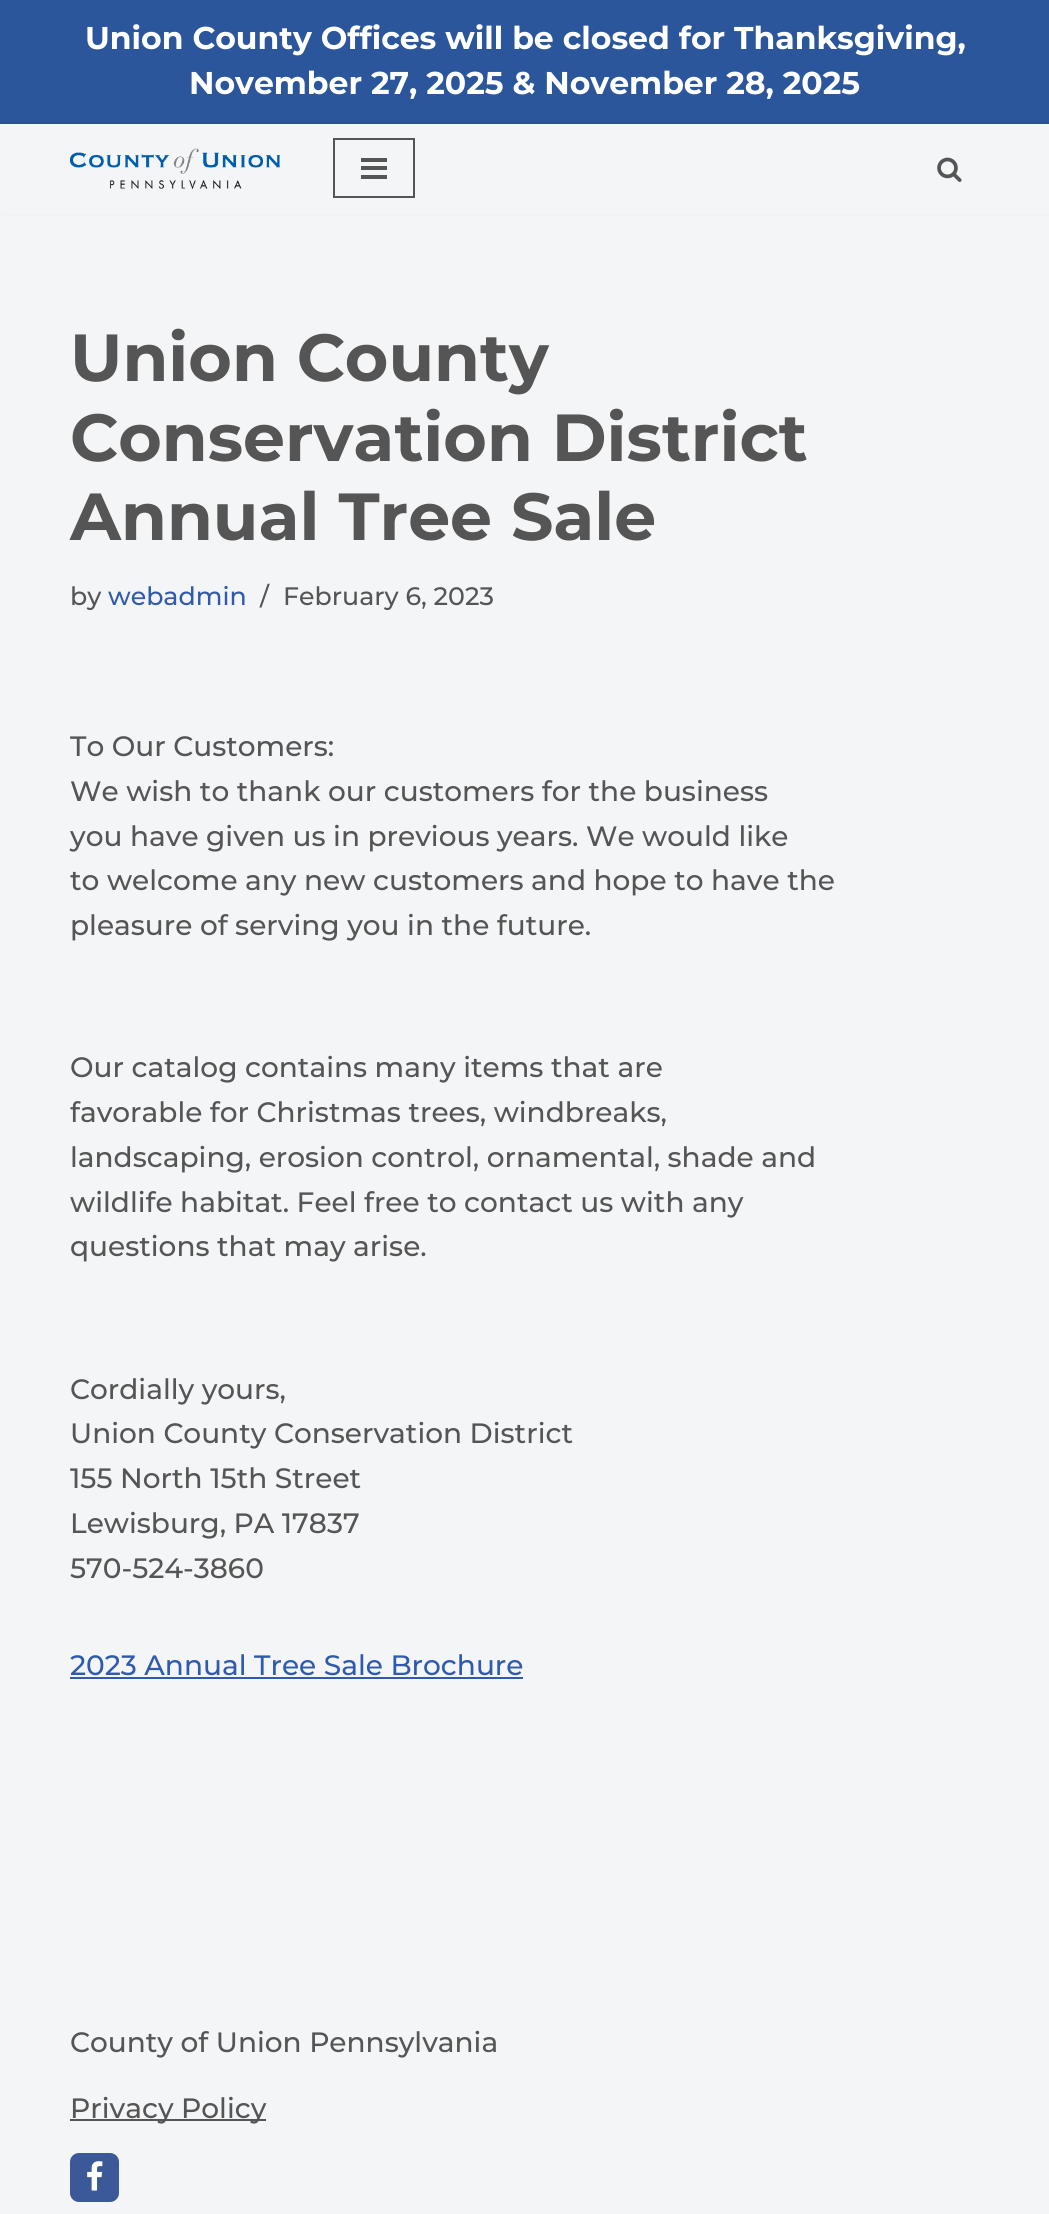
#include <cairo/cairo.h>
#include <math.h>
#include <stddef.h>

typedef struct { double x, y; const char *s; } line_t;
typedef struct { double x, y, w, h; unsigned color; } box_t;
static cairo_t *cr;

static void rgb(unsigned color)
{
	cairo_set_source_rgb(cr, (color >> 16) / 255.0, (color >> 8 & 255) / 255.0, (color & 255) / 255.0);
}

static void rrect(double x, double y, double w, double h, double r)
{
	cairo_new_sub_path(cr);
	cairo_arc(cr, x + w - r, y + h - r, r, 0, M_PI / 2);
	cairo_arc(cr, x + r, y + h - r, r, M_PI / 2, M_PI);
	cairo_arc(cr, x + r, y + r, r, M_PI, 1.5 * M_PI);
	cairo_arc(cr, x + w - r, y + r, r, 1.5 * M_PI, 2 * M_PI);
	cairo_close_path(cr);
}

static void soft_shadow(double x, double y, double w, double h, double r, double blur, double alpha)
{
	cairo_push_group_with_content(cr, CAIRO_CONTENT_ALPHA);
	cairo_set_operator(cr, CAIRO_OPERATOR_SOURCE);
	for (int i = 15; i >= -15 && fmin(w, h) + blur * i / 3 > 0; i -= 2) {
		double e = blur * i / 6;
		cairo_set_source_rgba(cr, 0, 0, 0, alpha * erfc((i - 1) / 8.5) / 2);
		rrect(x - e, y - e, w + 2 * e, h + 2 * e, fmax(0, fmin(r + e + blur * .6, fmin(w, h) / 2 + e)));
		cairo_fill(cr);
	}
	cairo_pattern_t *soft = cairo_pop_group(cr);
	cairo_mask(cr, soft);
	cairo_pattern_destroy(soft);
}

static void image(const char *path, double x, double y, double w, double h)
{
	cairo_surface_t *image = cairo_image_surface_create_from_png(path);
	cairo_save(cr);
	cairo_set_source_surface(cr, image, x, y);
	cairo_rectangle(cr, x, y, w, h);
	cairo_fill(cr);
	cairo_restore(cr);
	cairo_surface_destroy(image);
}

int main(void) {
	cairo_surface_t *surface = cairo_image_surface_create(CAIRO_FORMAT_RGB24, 1049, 2214);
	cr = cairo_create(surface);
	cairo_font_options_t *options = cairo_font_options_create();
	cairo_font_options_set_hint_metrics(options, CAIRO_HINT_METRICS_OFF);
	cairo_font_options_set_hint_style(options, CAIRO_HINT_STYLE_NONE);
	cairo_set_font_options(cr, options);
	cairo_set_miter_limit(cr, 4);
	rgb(0xf4f5f7);
	cairo_paint(cr);
	rgb(0x2b569c);
	cairo_rectangle(cr, 0, 0, 1049, 124);
	cairo_fill(cr);
	rgb(0x000000);
	soft_shadow(0, 123, 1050, 89, 0, 2.5, 0.1);
	rgb(0xf4f5f7);
	cairo_rectangle(cr, 0, 124, 1049, 90);
	cairo_fill(cr);
	image("img/1.png", 70, 148, 210, 41);
	cairo_rectangle(cr, 334, 139, 80, 58);
	rgb(0x565555);
	cairo_stroke(cr);
	{
		static const box_t items[] = {
			{361, 158, 26, 4, 0x565555},
			{361, 166, 26, 4, 0x565555},
			{361, 175, 26, 4, 0x565555},
		};
		for (size_t i = 0; i < sizeof items / sizeof *items; i++) {
			rgb(items[i].color);
			cairo_rectangle(cr, items[i].x, items[i].y, items[i].w, items[i].h);
			cairo_fill(cr);
		}
	}
	image("img/2.png", 937, 157, 25, 25);
	rgb(0x2f5aae);
	cairo_rectangle(cr, 70, 1677, 453, 2);
	cairo_fill(cr);
	rgb(0x565555);
	cairo_rectangle(cr, 70, 2119, 196, 2);
	cairo_fill(cr);
	rgb(0x3b5998);
	rrect(70, 2153, 49, 49, 9);
	cairo_fill(cr);
	image("img/3.png", 87, 2161, 16, 30);
	cairo_select_font_face(cr, "Montserrat", CAIRO_FONT_SLANT_NORMAL, CAIRO_FONT_WEIGHT_BOLD);
	cairo_set_font_size(cr, 31.5);
	rgb(0xffffff);
	cairo_move_to(cr, 85, 49);
	cairo_show_text(cr, "Union County Offices will be closed for Thanksgiving,");
	cairo_move_to(cr, 189, 94);
	cairo_show_text(cr, "November 27, 2025 & November 28, 2025");
	cairo_set_font_size(cr, 66.5);
	rgb(0x565555);
	{
		static const line_t items[] = {
			{70, 381, "Union County"},
			{70, 461, "Conservation District"},
			{70, 540, "Annual Tree Sale"},
		};
		for (size_t i = 0; i < sizeof items / sizeof *items; i++) {
			cairo_move_to(cr, items[i].x, items[i].y);
			cairo_show_text(cr, items[i].s);
		}
	}
	cairo_select_font_face(cr, "Montserrat Medium", CAIRO_FONT_SLANT_NORMAL, CAIRO_FONT_WEIGHT_NORMAL);
	cairo_set_font_size(cr, 25.25);
	cairo_move_to(cr, 70, 605);
	cairo_show_text(cr, "by");
	rgb(0x2f5aae);
	cairo_move_to(cr, 108, 605);
	cairo_show_text(cr, "webadmin");
	rgb(0x565555);
	cairo_move_to(cr, 260, 605);
	cairo_show_text(cr, "/");
	cairo_move_to(cr, 283, 605);
	cairo_show_text(cr, "February 6, 2023");
	cairo_set_font_size(cr, 28);
	{
		static const line_t items[] = {
			{70, 756, "To Our Customers:"},
			{70, 801, "We wish to thank our customers for the business"},
			{70, 846, "you have given us in previous years. We would like"},
			{70, 890, "to welcome any new customers and hope to have the"},
			{70, 935, "pleasure of serving you in the future."},
			{70, 1077, "Our catalog contains many items that are"},
			{70, 1122, "favorable for Christmas trees, windbreaks,"},
			{70, 1167, "landscaping, erosion control, ornamental, shade and"},
			{70, 1212, "wildlife habitat. Feel free to contact us with any"},
			{70, 1256, "questions that may arise."},
			{70, 1399, "Cordially yours,"},
			{70, 1443, "Union County Conservation District"},
			{70, 1488, "155 North 15th Street"},
			{70, 1533, "Lewisburg, PA 17837"},
			{70, 1578, "570-524-3860"},
		};
		for (size_t i = 0; i < sizeof items / sizeof *items; i++) {
			cairo_move_to(cr, items[i].x, items[i].y);
			cairo_show_text(cr, items[i].s);
		}
	}
	rgb(0x2f5aae);
	cairo_move_to(cr, 70, 1675);
	cairo_show_text(cr, "2023 Annual Tree Sale Brochure");
	rgb(0x565555);
	cairo_move_to(cr, 70, 2052);
	cairo_show_text(cr, "County of Union Pennsylvania");
	cairo_move_to(cr, 70, 2118);
	cairo_show_text(cr, "Privacy Policy");
	cairo_surface_write_to_png(surface, "page.png");
	cairo_font_options_destroy(options);
	cairo_destroy(cr);
	cairo_surface_destroy(surface);
	return 0;
}
